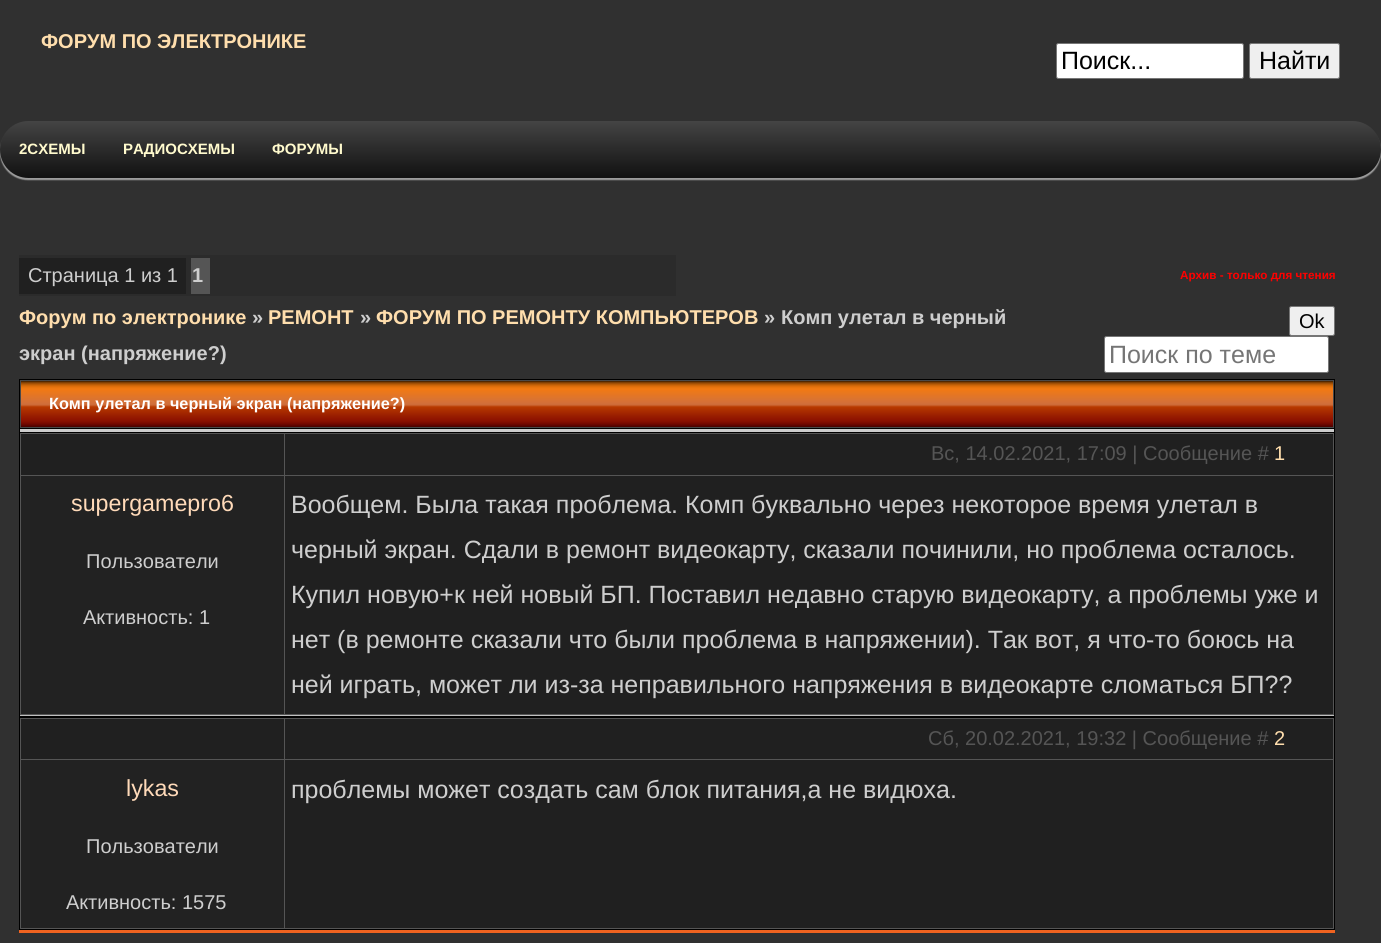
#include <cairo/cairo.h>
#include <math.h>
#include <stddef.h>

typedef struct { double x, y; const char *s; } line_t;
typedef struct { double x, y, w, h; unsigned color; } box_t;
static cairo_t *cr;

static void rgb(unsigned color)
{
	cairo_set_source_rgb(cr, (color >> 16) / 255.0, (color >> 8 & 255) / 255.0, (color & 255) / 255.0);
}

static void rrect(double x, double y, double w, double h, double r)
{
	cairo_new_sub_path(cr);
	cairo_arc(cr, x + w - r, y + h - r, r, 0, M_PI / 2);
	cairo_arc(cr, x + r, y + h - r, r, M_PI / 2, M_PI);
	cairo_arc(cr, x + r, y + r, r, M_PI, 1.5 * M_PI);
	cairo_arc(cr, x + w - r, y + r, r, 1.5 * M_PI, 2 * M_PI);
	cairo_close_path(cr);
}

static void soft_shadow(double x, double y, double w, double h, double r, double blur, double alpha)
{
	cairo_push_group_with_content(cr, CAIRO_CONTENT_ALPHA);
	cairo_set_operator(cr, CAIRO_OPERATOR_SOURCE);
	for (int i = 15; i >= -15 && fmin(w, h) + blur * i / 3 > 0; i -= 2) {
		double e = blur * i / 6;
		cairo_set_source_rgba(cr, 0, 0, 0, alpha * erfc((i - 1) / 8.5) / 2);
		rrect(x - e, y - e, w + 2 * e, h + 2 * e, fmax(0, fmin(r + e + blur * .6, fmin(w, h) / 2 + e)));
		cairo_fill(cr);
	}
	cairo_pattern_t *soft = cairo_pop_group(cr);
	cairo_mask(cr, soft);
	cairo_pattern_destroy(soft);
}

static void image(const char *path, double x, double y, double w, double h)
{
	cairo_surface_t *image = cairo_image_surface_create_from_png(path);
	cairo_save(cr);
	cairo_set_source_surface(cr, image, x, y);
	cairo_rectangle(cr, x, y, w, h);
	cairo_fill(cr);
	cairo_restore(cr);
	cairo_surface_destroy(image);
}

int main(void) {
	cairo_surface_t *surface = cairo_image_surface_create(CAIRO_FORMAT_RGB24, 1381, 943);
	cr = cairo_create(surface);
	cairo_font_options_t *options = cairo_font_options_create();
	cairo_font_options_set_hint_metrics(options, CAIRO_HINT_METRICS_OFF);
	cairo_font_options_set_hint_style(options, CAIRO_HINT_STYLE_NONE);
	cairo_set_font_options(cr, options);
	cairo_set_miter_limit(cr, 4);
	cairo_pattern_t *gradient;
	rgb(0x303030);
	cairo_paint(cr);
	rgb(0xffffff);
	rrect(1056.5, 43.5, 187, 35, 2);
	cairo_fill_preserve(cr);
	rgb(0x767676);
	cairo_set_line_width(cr, 1);
	cairo_stroke(cr);
	rgb(0xefefef);
	rrect(1249.5, 43.5, 90, 35, 2);
	cairo_fill_preserve(cr);
	rgb(0x767676);
	cairo_stroke(cr);
	rgb(0x9c9c9c);
	soft_shadow(0, 124, 1381, 56, 28, 0.5, 1);
	gradient = cairo_pattern_create_linear(691, 121, 691, 178);
	cairo_pattern_add_color_stop_rgba(gradient, 0, 0.267, 0.267, 0.267, 1);
	cairo_pattern_add_color_stop_rgba(gradient, 1, 0.067, 0.067, 0.067, 1);
	cairo_set_source(cr, gradient);
	cairo_pattern_destroy(gradient);
	rrect(0, 121, 1381, 57, 28.5);
	cairo_fill(cr);
	{
		static const box_t items[] = {
			{19, 255, 657, 41, 0x2b2b2b},
			{19, 258, 167, 36, 0x202020},
			{191, 258, 19, 36, 0x555555},
		};
		for (size_t i = 0; i < sizeof items / sizeof *items; i++) {
			rgb(items[i].color);
			cairo_rectangle(cr, items[i].x, items[i].y, items[i].w, items[i].h);
			cairo_fill(cr);
		}
	}
	rgb(0xefefef);
	rrect(1289.5, 306.5, 45, 29, 2);
	cairo_fill_preserve(cr);
	rgb(0x767676);
	cairo_stroke(cr);
	rgb(0xffffff);
	rrect(1104.5, 336.5, 224, 36, 2);
	cairo_fill_preserve(cr);
	rgb(0x767676);
	cairo_stroke(cr);
	rgb(0x000000);
	cairo_rectangle(cr, 19, 379, 1316, 551);
	cairo_fill(cr);
	rgb(0xf06320);
	cairo_rectangle(cr, 19, 930, 1316, 3);
	cairo_fill(cr);
	image("img/1.png", 21, 381, 1312, 46);
	cairo_rectangle(cr, 20.5, 380.5, 1313, 47);
	rgb(0x494949);
	cairo_stroke(cr);
	{
		static const box_t items[] = {
			{20, 429, 1314, 3, 0xcccccc},
			{20, 715, 1314, 1, 0xc0c0c0},
			{20, 433, 1314, 282, 0x555555},
			{21, 434, 263, 41, 0x202020},
			{285, 434, 1048, 41, 0x202020},
			{21, 476, 263, 238, 0x222222},
			{285, 476, 1048, 238, 0x202020},
			{20, 718, 1314, 211, 0x555555},
			{21, 719, 263, 40, 0x202020},
			{285, 719, 1048, 40, 0x202020},
			{21, 760, 263, 168, 0x222222},
			{285, 760, 1048, 168, 0x202020},
		};
		for (size_t i = 0; i < sizeof items / sizeof *items; i++) {
			rgb(items[i].color);
			cairo_rectangle(cr, items[i].x, items[i].y, items[i].w, items[i].h);
			cairo_fill(cr);
		}
	}
	cairo_select_font_face(cr, "Liberation Sans", CAIRO_FONT_SLANT_NORMAL, CAIRO_FONT_WEIGHT_BOLD);
	cairo_set_font_size(cr, 20);
	rgb(0xffdead);
	cairo_move_to(cr, 41, 48);
	cairo_show_text(cr, "ФОРУМ ПО ЭЛЕКТРОНИКЕ");
	cairo_select_font_face(cr, "Liberation Sans", CAIRO_FONT_SLANT_NORMAL, CAIRO_FONT_WEIGHT_NORMAL);
	cairo_set_font_size(cr, 25);
	rgb(0x000000);
	cairo_move_to(cr, 1061, 69);
	cairo_show_text(cr, "Поиск...");
	cairo_move_to(cr, 1259, 69);
	cairo_show_text(cr, "Найти");
	cairo_select_font_face(cr, "Liberation Sans", CAIRO_FONT_SLANT_NORMAL, CAIRO_FONT_WEIGHT_BOLD);
	cairo_set_font_size(cr, 15);
	rgb(0xfffacd);
	{
		static const line_t items[] = {
			{19, 154, "2СХЕМЫ"},
			{123, 154, "РАДИОСХЕМЫ"},
			{272, 154, "ФОРУМЫ"},
		};
		for (size_t i = 0; i < sizeof items / sizeof *items; i++) {
			cairo_move_to(cr, items[i].x, items[i].y);
			cairo_show_text(cr, items[i].s);
		}
	}
	cairo_select_font_face(cr, "Liberation Sans", CAIRO_FONT_SLANT_NORMAL, CAIRO_FONT_WEIGHT_NORMAL);
	cairo_set_font_size(cr, 20);
	rgb(0xcecece);
	cairo_move_to(cr, 28, 282);
	cairo_show_text(cr, "Страница 1 из 1");
	cairo_select_font_face(cr, "Liberation Sans", CAIRO_FONT_SLANT_NORMAL, CAIRO_FONT_WEIGHT_BOLD);
	cairo_move_to(cr, 192, 282);
	cairo_show_text(cr, "1");
	cairo_set_font_size(cr, 11.7);
	rgb(0xff0000);
	cairo_move_to(cr, 1180, 279);
	cairo_show_text(cr, "Архив - только для чтения");
	cairo_set_font_size(cr, 20);
	rgb(0xffdead);
	cairo_move_to(cr, 19, 324);
	cairo_show_text(cr, "Форум по электронике");
	rgb(0xcecece);
	cairo_move_to(cr, 252, 324);
	cairo_show_text(cr, "»");
	rgb(0xffdead);
	cairo_move_to(cr, 268, 324);
	cairo_show_text(cr, "РЕМОНТ");
	rgb(0xcecece);
	cairo_move_to(cr, 360, 324);
	cairo_show_text(cr, "»");
	rgb(0xffdead);
	cairo_move_to(cr, 376, 324);
	cairo_show_text(cr, "ФОРУМ ПО РЕМОНТУ КОМПЬЮТЕРОВ");
	rgb(0xcecece);
	{
		static const line_t items[] = {
			{764, 324, "»"},
			{781, 324, "Комп улетал в черный"},
			{19, 360, "экран (напряжение?)"},
		};
		for (size_t i = 0; i < sizeof items / sizeof *items; i++) {
			cairo_move_to(cr, items[i].x, items[i].y);
			cairo_show_text(cr, items[i].s);
		}
	}
	cairo_select_font_face(cr, "Liberation Sans", CAIRO_FONT_SLANT_NORMAL, CAIRO_FONT_WEIGHT_NORMAL);
	rgb(0x000000);
	cairo_move_to(cr, 1299, 328);
	cairo_show_text(cr, "Ok");
	cairo_set_font_size(cr, 25);
	rgb(0x757575);
	cairo_move_to(cr, 1109, 363);
	cairo_show_text(cr, "Поиск по теме");
	cairo_select_font_face(cr, "Liberation Sans", CAIRO_FONT_SLANT_NORMAL, CAIRO_FONT_WEIGHT_BOLD);
	cairo_set_font_size(cr, 16.25);
	rgb(0xffffff);
	cairo_move_to(cr, 49, 409);
	cairo_show_text(cr, "Комп улетал в черный экран (напряжение?)");
	cairo_select_font_face(cr, "Liberation Sans", CAIRO_FONT_SLANT_NORMAL, CAIRO_FONT_WEIGHT_NORMAL);
	cairo_set_font_size(cr, 20);
	rgb(0x555555);
	cairo_move_to(cr, 931, 460);
	cairo_show_text(cr, "Вс, 14.02.2021, 17:09 | Сообщение #");
	rgb(0xffdead);
	cairo_move_to(cr, 1274, 460);
	cairo_show_text(cr, "1");
	cairo_set_font_size(cr, 23.25);
	rgb(0xffdab9);
	cairo_move_to(cr, 71, 511);
	cairo_show_text(cr, "supergamepro6");
	cairo_set_font_size(cr, 20);
	rgb(0xcecece);
	cairo_move_to(cr, 86, 568);
	cairo_show_text(cr, "Пользователи");
	cairo_move_to(cr, 83, 624);
	cairo_show_text(cr, "Активность: 1");
	cairo_set_font_size(cr, 25);
	{
		static const line_t items[] = {
			{291, 513, "Вообщем. Была такая проблема. Комп буквально через некоторое время улетал в"},
			{291, 558, "черный экран. Сдали в ремонт видеокарту, сказали починили, но проблема осталось."},
			{291, 603, "Купил новую+к ней новый БП. Поставил недавно старую видеокарту, а проблемы уже и"},
			{291, 648, "нет (в ремонте сказали что были проблема в напряжении). Так вот, я что-то боюсь на"},
			{291, 693, "ней играть, может ли из-за неправильного напряжения в видеокарте сломаться БП?\077"},
		};
		for (size_t i = 0; i < sizeof items / sizeof *items; i++) {
			cairo_move_to(cr, items[i].x, items[i].y);
			cairo_show_text(cr, items[i].s);
		}
	}
	cairo_set_font_size(cr, 20);
	rgb(0x555555);
	cairo_move_to(cr, 928, 745);
	cairo_show_text(cr, "Сб, 20.02.2021, 19:32 | Сообщение #");
	rgb(0xffdead);
	cairo_move_to(cr, 1274, 745);
	cairo_show_text(cr, "2");
	cairo_set_font_size(cr, 23.25);
	rgb(0xffdab9);
	cairo_move_to(cr, 126, 796);
	cairo_show_text(cr, "lykas");
	cairo_set_font_size(cr, 20);
	rgb(0xcecece);
	cairo_move_to(cr, 86, 853);
	cairo_show_text(cr, "Пользователи");
	cairo_move_to(cr, 66, 909);
	cairo_show_text(cr, "Активность: 1575");
	cairo_set_font_size(cr, 25);
	cairo_move_to(cr, 291, 798);
	cairo_show_text(cr, "проблемы может создать сам блок питания,а не видюха.");
	cairo_surface_write_to_png(surface, "page.png");
	cairo_font_options_destroy(options);
	cairo_destroy(cr);
	cairo_surface_destroy(surface);
	return 0;
}
